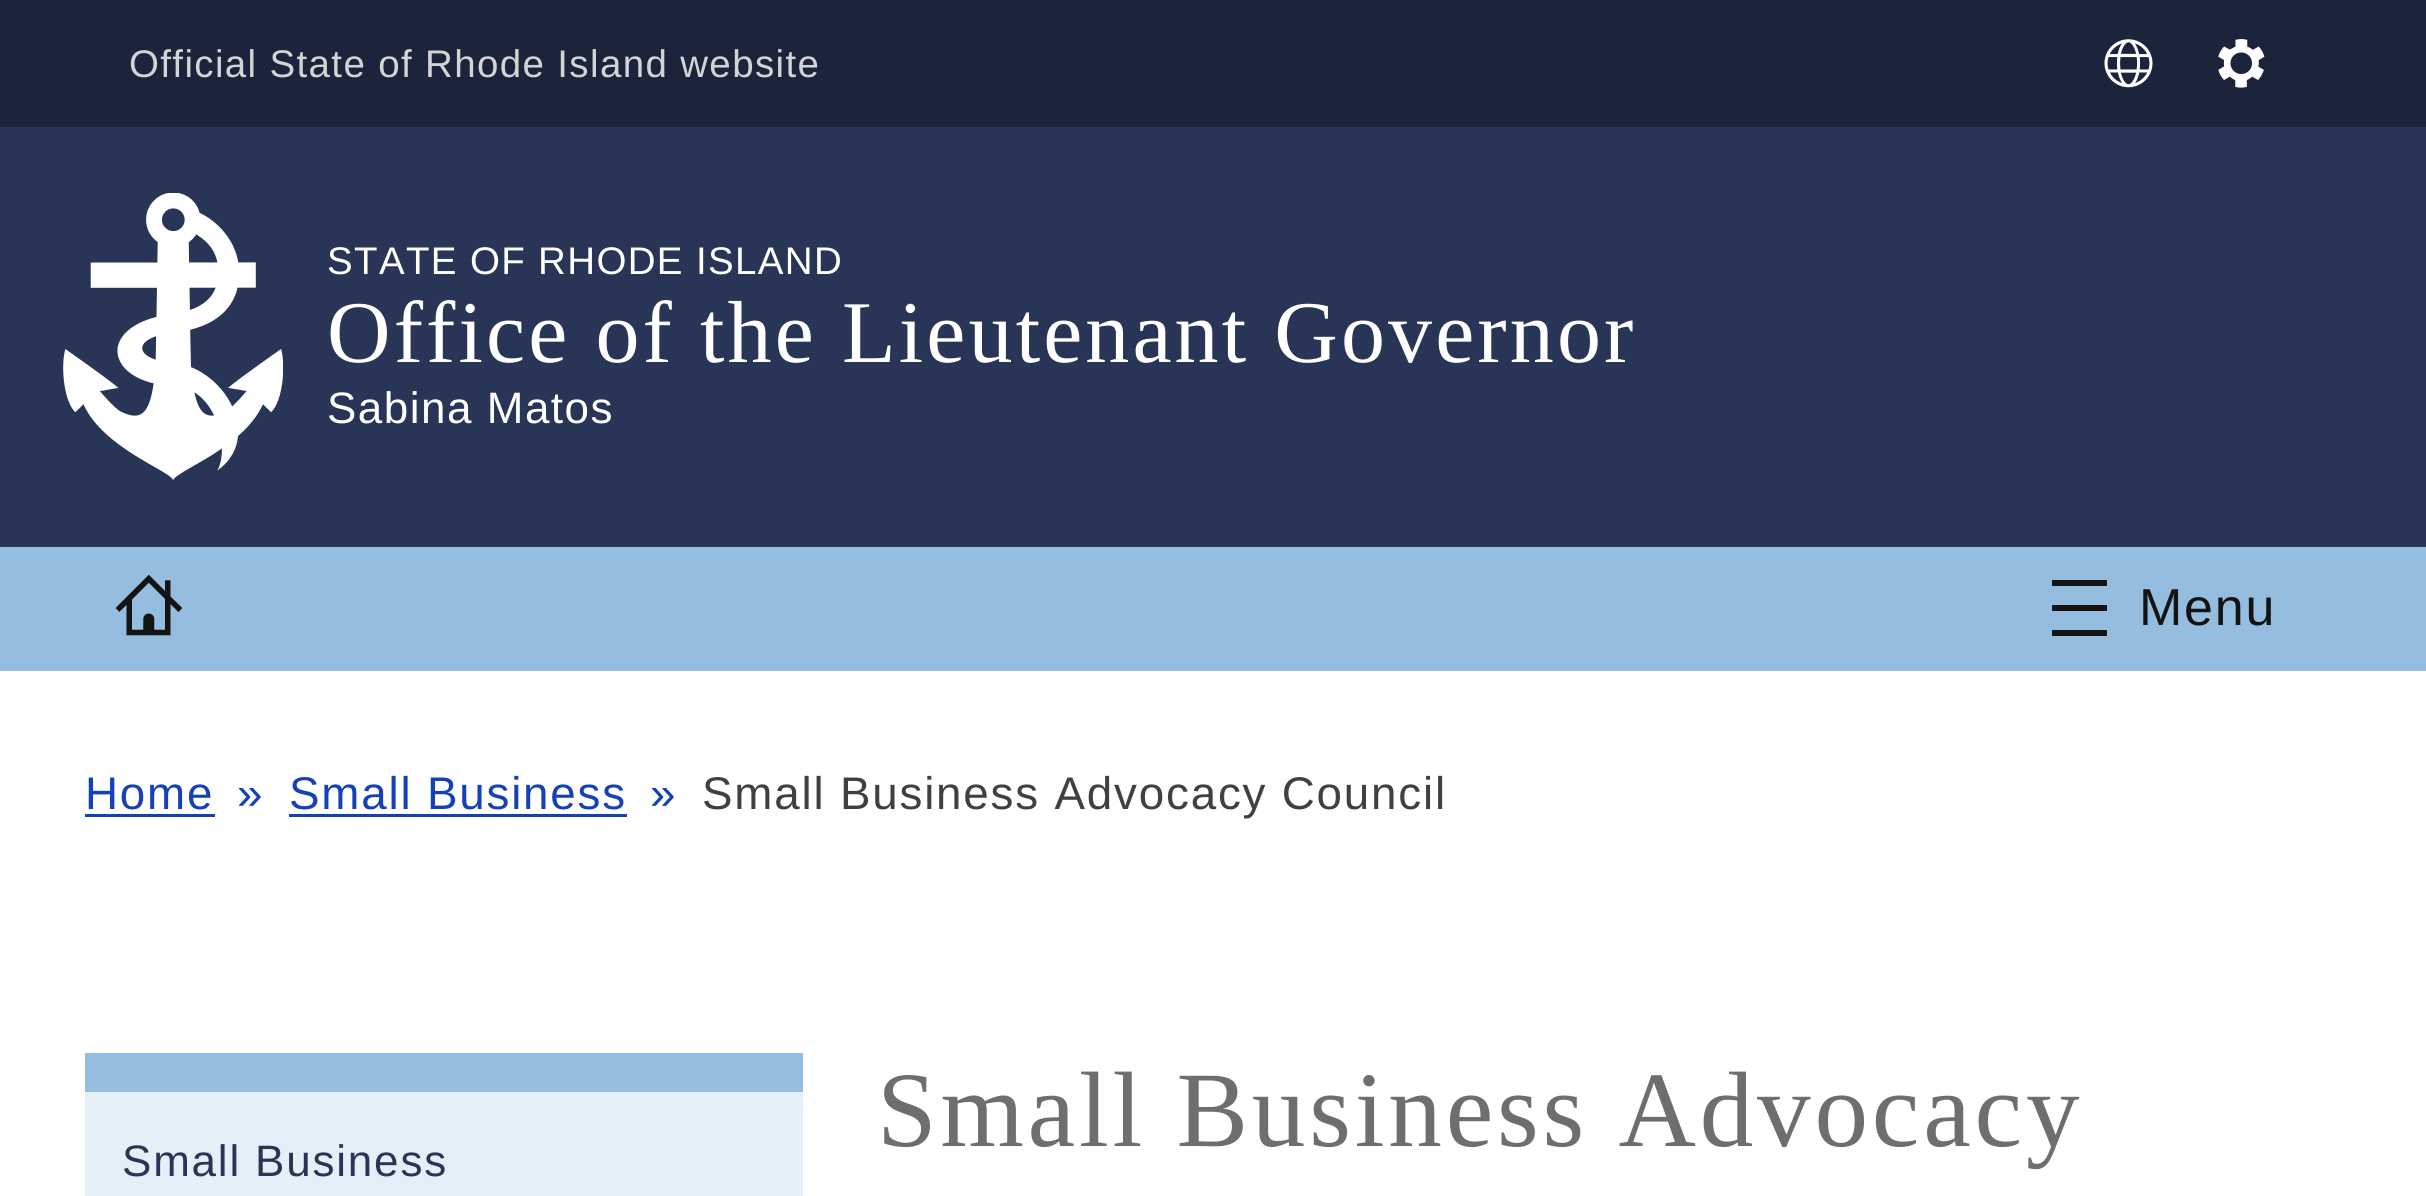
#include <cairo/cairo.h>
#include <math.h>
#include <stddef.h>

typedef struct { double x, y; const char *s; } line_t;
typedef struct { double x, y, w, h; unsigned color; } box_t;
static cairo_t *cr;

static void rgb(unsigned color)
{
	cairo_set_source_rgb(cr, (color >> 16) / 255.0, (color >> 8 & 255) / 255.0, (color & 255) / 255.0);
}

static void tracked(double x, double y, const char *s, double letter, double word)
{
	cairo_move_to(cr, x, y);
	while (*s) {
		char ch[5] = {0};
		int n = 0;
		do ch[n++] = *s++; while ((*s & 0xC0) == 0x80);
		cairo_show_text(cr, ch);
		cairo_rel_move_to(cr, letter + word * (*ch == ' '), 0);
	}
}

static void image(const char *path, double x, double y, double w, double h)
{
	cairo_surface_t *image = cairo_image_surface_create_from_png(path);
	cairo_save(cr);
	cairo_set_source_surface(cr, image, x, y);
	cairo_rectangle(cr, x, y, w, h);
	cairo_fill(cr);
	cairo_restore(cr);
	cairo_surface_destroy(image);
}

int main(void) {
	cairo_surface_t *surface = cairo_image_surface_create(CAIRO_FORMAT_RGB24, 2426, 1196);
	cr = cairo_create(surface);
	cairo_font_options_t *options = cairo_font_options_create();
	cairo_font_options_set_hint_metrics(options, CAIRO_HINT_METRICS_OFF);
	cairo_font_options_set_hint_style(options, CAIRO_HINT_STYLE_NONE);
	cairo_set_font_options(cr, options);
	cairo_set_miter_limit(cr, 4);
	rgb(0xffffff);
	cairo_paint(cr);
	rgb(0x293557);
	cairo_rectangle(cr, 0, 127, 2426, 420);
	cairo_fill(cr);
	rgb(0x1b243b);
	cairo_rectangle(cr, 0, 0, 2426, 127);
	cairo_fill(cr);
	image("img/1.png", 2104, 39, 49, 49);
	image("img/2.png", 2218, 39, 47, 49);
	image("img/3.png", 63, 193, 220, 287);
	rgb(0x95bddf);
	cairo_rectangle(cr, 0, 547, 2426, 124);
	cairo_fill(cr);
	image("img/4.png", 115, 574, 68, 62);
	{
		static const box_t items[] = {
			{2052, 580, 55, 6, 0x141414},
			{2052, 605, 55, 6, 0x141414},
			{2052, 630, 55, 6, 0x141414},
			{85, 814, 130, 3, 0x1440b8},
			{289, 814, 338, 3, 0x1440b8},
			{85, 1053, 718, 39, 0x95bddf},
			{85, 1092, 718, 104, 0xe5eff7},
		};
		for (size_t i = 0; i < sizeof items / sizeof *items; i++) {
			rgb(items[i].color);
			cairo_rectangle(cr, items[i].x, items[i].y, items[i].w, items[i].h);
			cairo_fill(cr);
		}
	}
	cairo_select_font_face(cr, "Liberation Sans", CAIRO_FONT_SLANT_NORMAL, CAIRO_FONT_WEIGHT_NORMAL);
	cairo_set_font_size(cr, 38.5);
	rgb(0xd4d4d4);
	tracked(129, 77, "Official State of Rhode Island website", 1.35, 0);
	rgb(0xffffff);
	tracked(327, 274, "STATE OF RHODE ISLAND", 1.35, 0);
	cairo_select_font_face(cr, "Liberation Serif", CAIRO_FONT_SLANT_NORMAL, CAIRO_FONT_WEIGHT_NORMAL);
	cairo_set_font_size(cr, 88);
	tracked(327, 362, "Office of the Lieutenant Governor", 3.1, 0);
	cairo_select_font_face(cr, "Liberation Sans", CAIRO_FONT_SLANT_NORMAL, CAIRO_FONT_WEIGHT_NORMAL);
	cairo_set_font_size(cr, 44);
	tracked(327, 423, "Sabina Matos", 1.5, 0);
	cairo_set_font_size(cr, 52);
	rgb(0x141414);
	tracked(2139, 625, "Menu", 1.8, 0);
	cairo_set_font_size(cr, 45.75);
	rgb(0x1440b8);
	{
		static const line_t items[] = {
			{85, 809, "Home"},
			{237, 809, "»"},
			{289, 809, "Small Business"},
			{650, 809, "»"},
		};
		for (size_t i = 0; i < sizeof items / sizeof *items; i++) {
			tracked(items[i].x, items[i].y, items[i].s, 1.8, 0);
		}
	}
	rgb(0x404040);
	tracked(702, 809, "Small Business Advocacy Council", 1.8, 0);
	cairo_set_font_size(cr, 44);
	rgb(0x293557);
	tracked(122, 1176, "Small Business", 1.8, 0);
	cairo_select_font_face(cr, "Liberation Serif", CAIRO_FONT_SLANT_NORMAL, CAIRO_FONT_WEIGHT_NORMAL);
	cairo_set_font_size(cr, 107.25);
	rgb(0x6e6e6e);
	tracked(877, 1146, "Small Business Advocacy", 3.75, 0);
	cairo_surface_write_to_png(surface, "page.png");
	cairo_font_options_destroy(options);
	cairo_destroy(cr);
	cairo_surface_destroy(surface);
	return 0;
}
